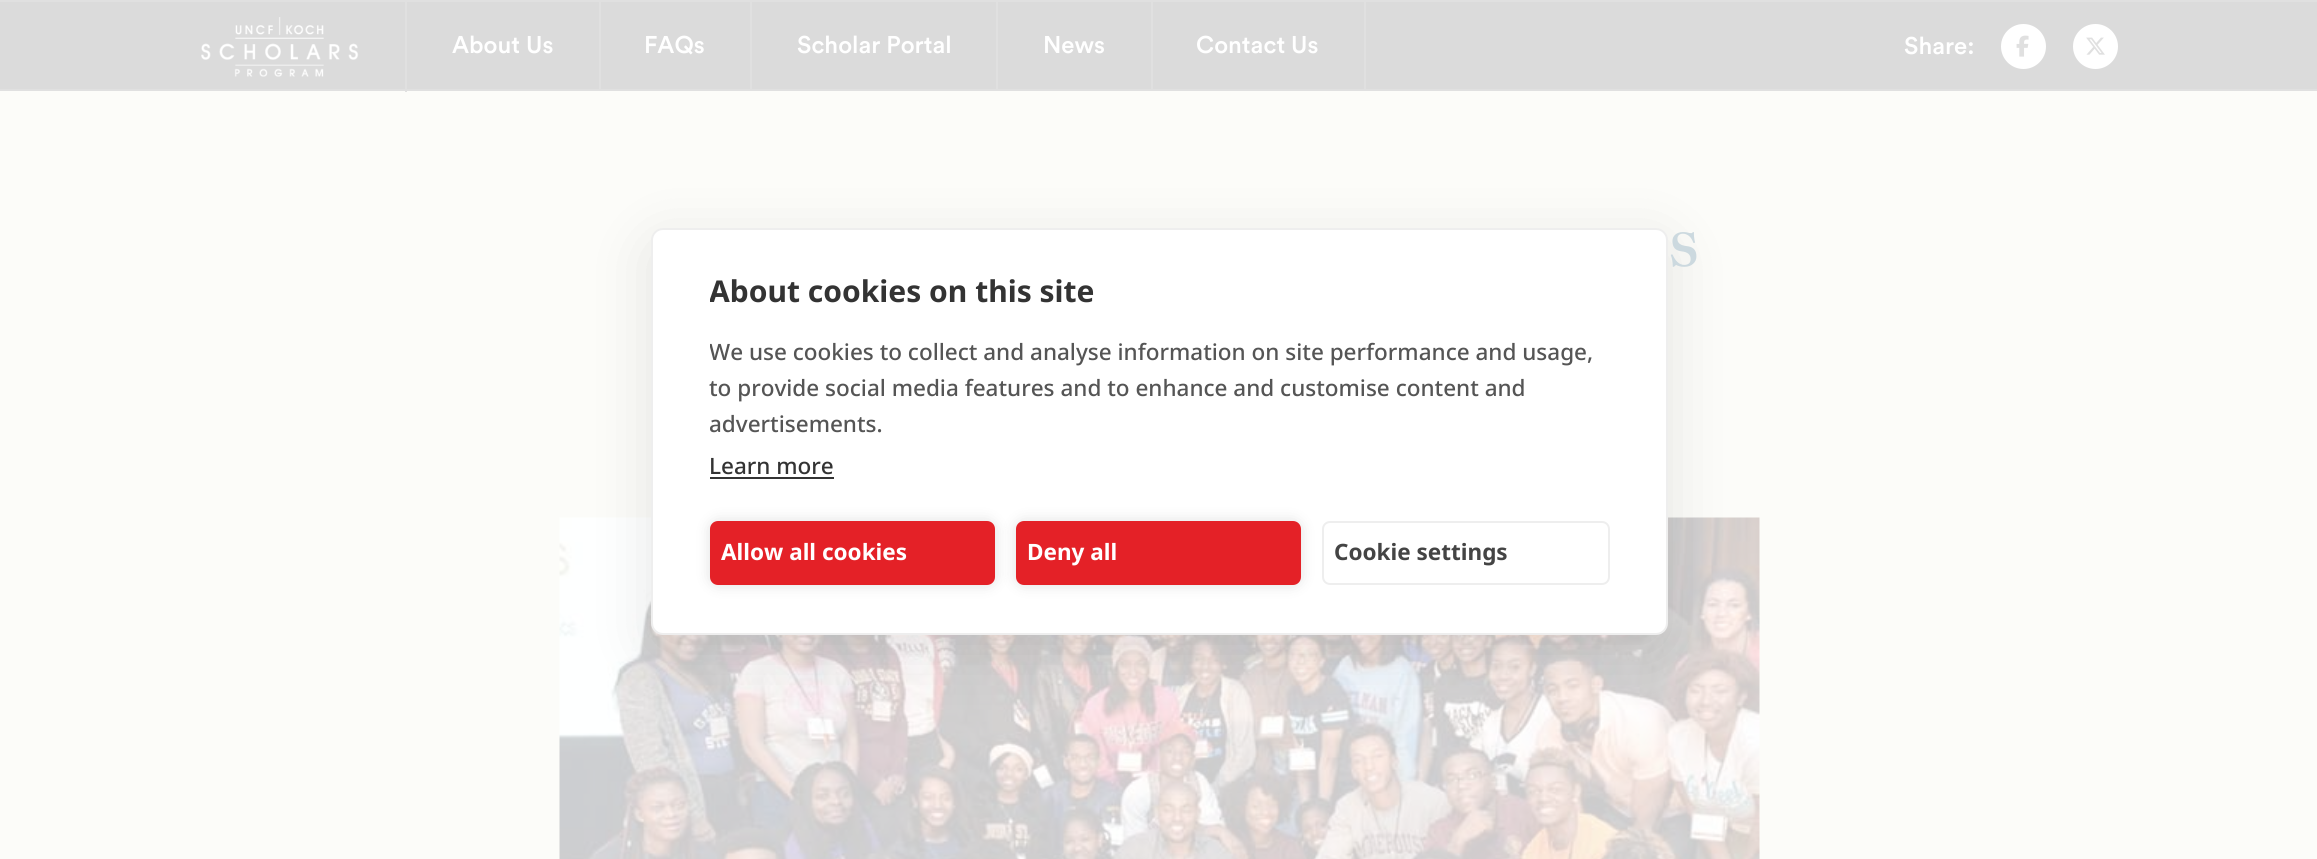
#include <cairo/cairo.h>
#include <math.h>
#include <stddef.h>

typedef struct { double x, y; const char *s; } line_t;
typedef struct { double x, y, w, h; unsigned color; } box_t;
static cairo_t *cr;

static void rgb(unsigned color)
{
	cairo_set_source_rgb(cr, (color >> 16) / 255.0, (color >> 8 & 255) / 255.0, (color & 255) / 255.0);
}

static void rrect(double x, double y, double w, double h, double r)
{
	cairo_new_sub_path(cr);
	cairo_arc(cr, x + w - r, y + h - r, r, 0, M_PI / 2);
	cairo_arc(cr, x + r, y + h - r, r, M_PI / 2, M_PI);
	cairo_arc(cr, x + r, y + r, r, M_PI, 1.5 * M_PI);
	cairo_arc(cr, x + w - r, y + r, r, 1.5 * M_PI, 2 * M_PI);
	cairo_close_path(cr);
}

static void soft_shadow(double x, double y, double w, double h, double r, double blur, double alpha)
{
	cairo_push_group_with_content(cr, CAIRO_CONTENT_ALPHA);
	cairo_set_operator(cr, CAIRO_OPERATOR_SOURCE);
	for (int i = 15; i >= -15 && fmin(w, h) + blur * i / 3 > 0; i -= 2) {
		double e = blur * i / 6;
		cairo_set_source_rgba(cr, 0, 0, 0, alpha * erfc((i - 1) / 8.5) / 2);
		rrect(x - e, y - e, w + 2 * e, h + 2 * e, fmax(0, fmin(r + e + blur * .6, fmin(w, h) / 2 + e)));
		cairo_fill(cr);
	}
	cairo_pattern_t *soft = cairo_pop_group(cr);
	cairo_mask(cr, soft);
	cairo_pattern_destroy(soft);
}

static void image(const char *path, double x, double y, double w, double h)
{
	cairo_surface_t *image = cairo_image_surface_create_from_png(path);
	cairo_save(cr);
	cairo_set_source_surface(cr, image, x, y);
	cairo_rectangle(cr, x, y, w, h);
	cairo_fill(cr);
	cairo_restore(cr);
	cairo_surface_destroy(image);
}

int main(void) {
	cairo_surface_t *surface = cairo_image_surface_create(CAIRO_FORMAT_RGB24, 2317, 859);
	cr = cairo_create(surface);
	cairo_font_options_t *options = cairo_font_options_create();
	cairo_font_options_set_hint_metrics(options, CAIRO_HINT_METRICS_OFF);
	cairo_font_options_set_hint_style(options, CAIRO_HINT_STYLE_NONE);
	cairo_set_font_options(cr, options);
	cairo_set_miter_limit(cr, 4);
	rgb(0xfcfcf9);
	cairo_paint(cr);
	{
		static const box_t items[] = {
			{0, 2, 2317, 87, 0xdbdbdb},
			{0, 0, 2317, 2, 0xe0e0e0},
			{0, 89, 2317, 2, 0xe0e0e0},
			{405, 2, 2, 90, 0xe0e0e0},
		};
		for (size_t i = 0; i < sizeof items / sizeof *items; i++) {
			rgb(items[i].color);
			cairo_rectangle(cr, items[i].x, items[i].y, items[i].w, items[i].h);
			cairo_fill(cr);
		}
	}
	image("img/1.png", 201, 17, 158, 60);
	{
		static const box_t items[] = {
			{599, 2, 2, 87, 0xe0e0e0},
			{750, 2, 2, 87, 0xe0e0e0},
			{996, 2, 2, 87, 0xe0e0e0},
			{1151, 2, 2, 87, 0xe0e0e0},
			{1364, 2, 2, 87, 0xe0e0e0},
		};
		for (size_t i = 0; i < sizeof items / sizeof *items; i++) {
			rgb(items[i].color);
			cairo_rectangle(cr, items[i].x, items[i].y, items[i].w, items[i].h);
			cairo_fill(cr);
		}
	}
	rgb(0xffffff);
	cairo_arc(cr, 2023.5, 46.5, 21, 0, 2 * M_PI);
	cairo_fill_preserve(cr);
	cairo_set_line_width(cr, 3);
	cairo_stroke(cr);
	image("img/2.png", 2016, 35, 13, 22);
	cairo_arc(cr, 2095.5, 46.5, 21, 0, 2 * M_PI);
	cairo_fill_preserve(cr);
	cairo_stroke(cr);
	image("img/3.png", 2086, 37, 19, 18);
	image("img/4.png", 559, 517, 1201, 342);
	rgb(0x000000);
	soft_shadow(651, 243, 1017, 407, 12, 30, 0.1);
	rgb(0xffffff);
	rrect(652, 229, 1015, 405, 11);
	cairo_fill_preserve(cr);
	rgb(0xeeeeee);
	cairo_set_line_width(cr, 2);
	cairo_stroke(cr);
	rgb(0x333333);
	cairo_rectangle(cr, 710, 477, 124, 2);
	cairo_fill(cr);
	rgb(0x000000);
	soft_shadow(710, 521, 285, 64, 8, 7.5, 0.12);
	rgb(0xe42127);
	rrect(710, 521, 285, 64, 8);
	cairo_fill(cr);
	rgb(0x000000);
	soft_shadow(1016, 521, 285, 64, 8, 7.5, 0.12);
	rgb(0xe42127);
	rrect(1016, 521, 285, 64, 8);
	cairo_fill(cr);
	rrect(1323, 522, 286, 62, 7);
	rgb(0xeeeeee);
	cairo_stroke(cr);
	cairo_select_font_face(cr, "Circular Medium", CAIRO_FONT_SLANT_NORMAL, CAIRO_FONT_WEIGHT_NORMAL);
	cairo_set_font_size(cr, 24);
	rgb(0xffffff);
	{
		static const line_t items[] = {
			{452, 53, "About Us"},
			{644, 53, "FAQs"},
			{797, 53, "Scholar Portal"},
			{1043, 53, "News"},
			{1196, 53, "Contact Us"},
			{1904, 54, "Share:"},
		};
		for (size_t i = 0; i < sizeof items / sizeof *items; i++) {
			cairo_move_to(cr, items[i].x, items[i].y);
			cairo_show_text(cr, items[i].s);
		}
	}
	cairo_select_font_face(cr, "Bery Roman", CAIRO_FONT_SLANT_NORMAL, CAIRO_FONT_WEIGHT_NORMAL);
	cairo_set_font_size(cr, 69);
	rgb(0xccd9df);
	cairo_move_to(cr, 1668, 266);
	cairo_show_text(cr, "s");
	cairo_save(cr);
	cairo_rectangle(cr, 710, 278, 900, 243);
	cairo_clip(cr);
	cairo_select_font_face(cr, "Noto Sans", CAIRO_FONT_SLANT_NORMAL, CAIRO_FONT_WEIGHT_BOLD);
	cairo_set_font_size(cr, 30);
	rgb(0x333333);
	cairo_move_to(cr, 709, 302);
	cairo_show_text(cr, "About cookies on this site");
	cairo_select_font_face(cr, "Noto Sans Medium", CAIRO_FONT_SLANT_NORMAL, CAIRO_FONT_WEIGHT_NORMAL);
	cairo_set_font_size(cr, 22.5);
	rgb(0x555555);
	cairo_move_to(cr, 709, 360);
	cairo_show_text(cr, "We use cookies to collect and analyse information on site performance and usage,");
	cairo_restore(cr);
	cairo_select_font_face(cr, "Noto Sans Medium", CAIRO_FONT_SLANT_NORMAL, CAIRO_FONT_WEIGHT_NORMAL);
	cairo_set_font_size(cr, 22.5);
	rgb(0x555555);
	cairo_move_to(cr, 709, 396);
	cairo_show_text(cr, "to provide social media features and to enhance and customise content and");
	cairo_save(cr);
	cairo_rectangle(cr, 710, 278, 900, 243);
	cairo_clip(cr);
	cairo_move_to(cr, 709, 432);
	cairo_show_text(cr, "advertisements.");
	cairo_restore(cr);
	rgb(0x333333);
	cairo_move_to(cr, 709, 474);
	cairo_show_text(cr, "Learn more");
	cairo_select_font_face(cr, "Noto Sans", CAIRO_FONT_SLANT_NORMAL, CAIRO_FONT_WEIGHT_BOLD);
	rgb(0xffffff);
	cairo_move_to(cr, 721, 560);
	cairo_show_text(cr, "Allow all cookies");
	cairo_move_to(cr, 1027, 560);
	cairo_show_text(cr, "Deny all");
	rgb(0x444444);
	cairo_move_to(cr, 1334, 560);
	cairo_show_text(cr, "Cookie settings");
	cairo_surface_write_to_png(surface, "page.png");
	cairo_font_options_destroy(options);
	cairo_destroy(cr);
	cairo_surface_destroy(surface);
	return 0;
}
